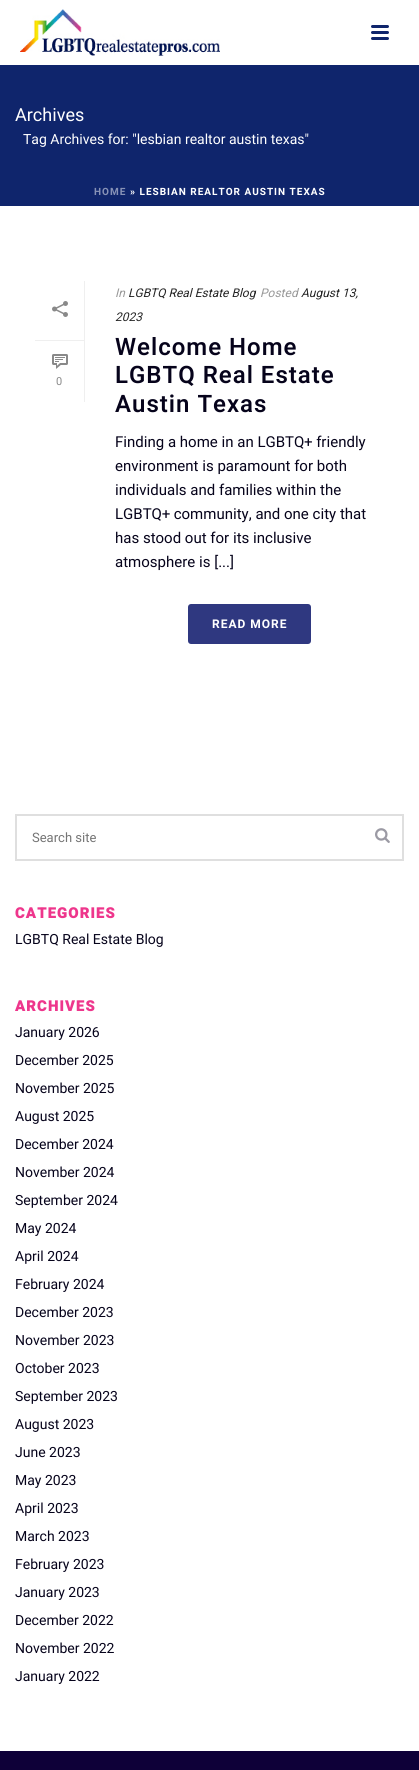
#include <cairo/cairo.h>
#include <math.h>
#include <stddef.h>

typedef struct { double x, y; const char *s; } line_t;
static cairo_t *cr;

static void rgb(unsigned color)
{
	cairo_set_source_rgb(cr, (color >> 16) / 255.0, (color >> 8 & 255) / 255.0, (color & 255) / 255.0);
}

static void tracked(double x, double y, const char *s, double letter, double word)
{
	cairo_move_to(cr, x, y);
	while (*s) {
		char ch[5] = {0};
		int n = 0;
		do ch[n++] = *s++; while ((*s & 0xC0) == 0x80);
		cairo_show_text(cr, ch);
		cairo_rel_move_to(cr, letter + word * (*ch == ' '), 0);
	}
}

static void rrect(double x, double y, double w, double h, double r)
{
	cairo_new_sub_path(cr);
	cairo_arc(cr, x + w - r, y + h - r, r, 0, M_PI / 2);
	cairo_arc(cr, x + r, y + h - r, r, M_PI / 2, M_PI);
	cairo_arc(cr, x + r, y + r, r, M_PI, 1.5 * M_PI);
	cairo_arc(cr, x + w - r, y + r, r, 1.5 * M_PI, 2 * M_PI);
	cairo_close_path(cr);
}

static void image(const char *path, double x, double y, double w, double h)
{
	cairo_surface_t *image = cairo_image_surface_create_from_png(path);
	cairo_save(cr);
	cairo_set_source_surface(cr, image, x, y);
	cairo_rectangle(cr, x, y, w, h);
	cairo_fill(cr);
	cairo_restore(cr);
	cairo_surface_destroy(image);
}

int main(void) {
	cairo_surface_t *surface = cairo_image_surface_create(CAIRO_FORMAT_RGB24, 419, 1770);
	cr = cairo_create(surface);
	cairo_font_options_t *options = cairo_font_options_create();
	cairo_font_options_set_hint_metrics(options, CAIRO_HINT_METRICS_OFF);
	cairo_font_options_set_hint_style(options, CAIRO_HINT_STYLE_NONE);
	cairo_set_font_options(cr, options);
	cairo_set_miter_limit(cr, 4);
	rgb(0xffffff);
	cairo_paint(cr);
	rgb(0x0f256c);
	cairo_rectangle(cr, 0, 65, 419, 141);
	cairo_fill(cr);
	image("img/1.png", 20, 9, 200, 47);
	rrect(371, 25, 18, 3, 1.5);
	cairo_fill(cr);
	rrect(371, 31, 18, 3, 1.5);
	cairo_fill(cr);
	rrect(371, 37, 18, 3, 1.5);
	cairo_fill(cr);
	rgb(0xefefef);
	cairo_rectangle(cr, 84, 281, 1, 121);
	cairo_fill(cr);
	cairo_rectangle(cr, 35, 340, 49, 1);
	cairo_fill(cr);
	image("img/2.png", 52, 301, 16, 16);
	image("img/3.png", 52, 354, 16, 15);
	rgb(0x2f3880);
	rrect(188, 604, 123, 40, 3);
	cairo_fill(cr);
	cairo_rectangle(cr, 16, 815, 387, 45);
	rgb(0xdfdfdf);
	cairo_stroke(cr);
	image("img/4.png", 375, 828, 15, 15);
	rgb(0x0e0038);
	cairo_rectangle(cr, 0, 1751, 419, 19);
	cairo_fill(cr);
	cairo_select_font_face(cr, "Heebo", CAIRO_FONT_SLANT_NORMAL, CAIRO_FONT_WEIGHT_NORMAL);
	cairo_set_font_size(cr, 18);
	rgb(0xffffff);
	cairo_move_to(cr, 15, 121);
	cairo_show_text(cr, "Archives");
	cairo_set_font_size(cr, 14);
	cairo_move_to(cr, 23, 144);
	cairo_show_text(cr, "Tag Archives for: \"lesbian realtor austin texas\"");
	cairo_select_font_face(cr, "Heebo", CAIRO_FONT_SLANT_NORMAL, CAIRO_FONT_WEIGHT_BOLD);
	cairo_set_font_size(cr, 10);
	rgb(0x8792b6);
	tracked(94, 195, "HOME", 1, 0);
	rgb(0xffffff);
	tracked(130, 195, "» LESBIAN REALTOR AUSTIN TEXAS", 1, 0);
	cairo_select_font_face(cr, "Heebo", CAIRO_FONT_SLANT_NORMAL, CAIRO_FONT_WEIGHT_NORMAL);
	cairo_set_font_size(cr, 11);
	rgb(0x898989);
	cairo_move_to(cr, 56, 385);
	cairo_show_text(cr, "0");
	cairo_select_font_face(cr, "Heebo", CAIRO_FONT_SLANT_ITALIC, CAIRO_FONT_WEIGHT_NORMAL);
	cairo_set_font_size(cr, 12);
	rgb(0x999999);
	cairo_move_to(cr, 115, 297);
	cairo_show_text(cr, "In");
	rgb(0x252525);
	cairo_move_to(cr, 128, 297);
	cairo_show_text(cr, "LGBTQ Real Estate Blog");
	rgb(0x999999);
	cairo_move_to(cr, 260, 297);
	cairo_show_text(cr, "Posted");
	rgb(0x252525);
	cairo_move_to(cr, 301, 297);
	cairo_show_text(cr, "August 13,");
	cairo_move_to(cr, 115, 321);
	cairo_show_text(cr, "2023");
	cairo_select_font_face(cr, "Heebo SemiBold", CAIRO_FONT_SLANT_NORMAL, CAIRO_FONT_WEIGHT_NORMAL);
	cairo_set_font_size(cr, 24);
	rgb(0x06031b);
	{
		static const line_t items[] = {
			{115, 355, "Welcome Home"},
			{115, 383, "LGBTQ Real Estate"},
			{115, 412, "Austin Texas"},
		};
		for (size_t i = 0; i < sizeof items / sizeof *items; i++) {
			tracked(items[i].x, items[i].y, items[i].s, 1, 0);
		}
	}
	cairo_select_font_face(cr, "Heebo", CAIRO_FONT_SLANT_NORMAL, CAIRO_FONT_WEIGHT_NORMAL);
	cairo_set_font_size(cr, 15);
	{
		static const line_t items[] = {
			{115, 447, "Finding a home in an LGBTQ+ friendly"},
			{115, 471, "environment is paramount for both"},
			{115, 495, "individuals and families within the"},
			{115, 519, "LGBTQ+ community, and one city that"},
			{115, 543, "has stood out for its inclusive"},
			{115, 567, "atmosphere is [...]"},
		};
		for (size_t i = 0; i < sizeof items / sizeof *items; i++) {
			cairo_move_to(cr, items[i].x, items[i].y);
			cairo_show_text(cr, items[i].s);
		}
	}
	cairo_select_font_face(cr, "Heebo", CAIRO_FONT_SLANT_NORMAL, CAIRO_FONT_WEIGHT_BOLD);
	cairo_set_font_size(cr, 12);
	rgb(0xffffff);
	tracked(212, 628, "READ MORE", 1, 0);
	cairo_select_font_face(cr, "Heebo", CAIRO_FONT_SLANT_NORMAL, CAIRO_FONT_WEIGHT_NORMAL);
	cairo_set_font_size(cr, 13);
	rgb(0x757575);
	cairo_move_to(cr, 32, 842);
	cairo_show_text(cr, "Search site");
	cairo_select_font_face(cr, "Heebo Black", CAIRO_FONT_SLANT_NORMAL, CAIRO_FONT_WEIGHT_NORMAL);
	cairo_set_font_size(cr, 15);
	rgb(0xee368c);
	tracked(15, 918, "CATEGORIES", 1, 0);
	cairo_select_font_face(cr, "Heebo", CAIRO_FONT_SLANT_NORMAL, CAIRO_FONT_WEIGHT_NORMAL);
	cairo_set_font_size(cr, 14);
	rgb(0x06031b);
	cairo_move_to(cr, 15, 944);
	cairo_show_text(cr, "LGBTQ Real Estate Blog");
	cairo_select_font_face(cr, "Heebo Black", CAIRO_FONT_SLANT_NORMAL, CAIRO_FONT_WEIGHT_NORMAL);
	cairo_set_font_size(cr, 15);
	rgb(0xee368c);
	tracked(15, 1011, "ARCHIVES", 1, 0);
	cairo_select_font_face(cr, "Heebo", CAIRO_FONT_SLANT_NORMAL, CAIRO_FONT_WEIGHT_NORMAL);
	cairo_set_font_size(cr, 14);
	rgb(0x06031b);
	{
		static const line_t items[] = {
			{15, 1037, "January 2026"},
			{15, 1065, "December 2025"},
			{15, 1093, "November 2025"},
			{15, 1121, "August 2025"},
			{15, 1149, "December 2024"},
			{15, 1177, "November 2024"},
			{15, 1205, "September 2024"},
			{15, 1233, "May 2024"},
			{15, 1261, "April 2024"},
			{15, 1289, "February 2024"},
			{15, 1317, "December 2023"},
			{15, 1345, "November 2023"},
			{15, 1373, "October 2023"},
			{15, 1401, "September 2023"},
			{15, 1429, "August 2023"},
			{15, 1457, "June 2023"},
			{15, 1485, "May 2023"},
			{15, 1513, "April 2023"},
			{15, 1541, "March 2023"},
			{15, 1569, "February 2023"},
			{15, 1597, "January 2023"},
			{15, 1625, "December 2022"},
			{15, 1653, "November 2022"},
			{15, 1681, "January 2022"},
		};
		for (size_t i = 0; i < sizeof items / sizeof *items; i++) {
			cairo_move_to(cr, items[i].x, items[i].y);
			cairo_show_text(cr, items[i].s);
		}
	}
	cairo_surface_write_to_png(surface, "page.png");
	cairo_font_options_destroy(options);
	cairo_destroy(cr);
	cairo_surface_destroy(surface);
	return 0;
}
